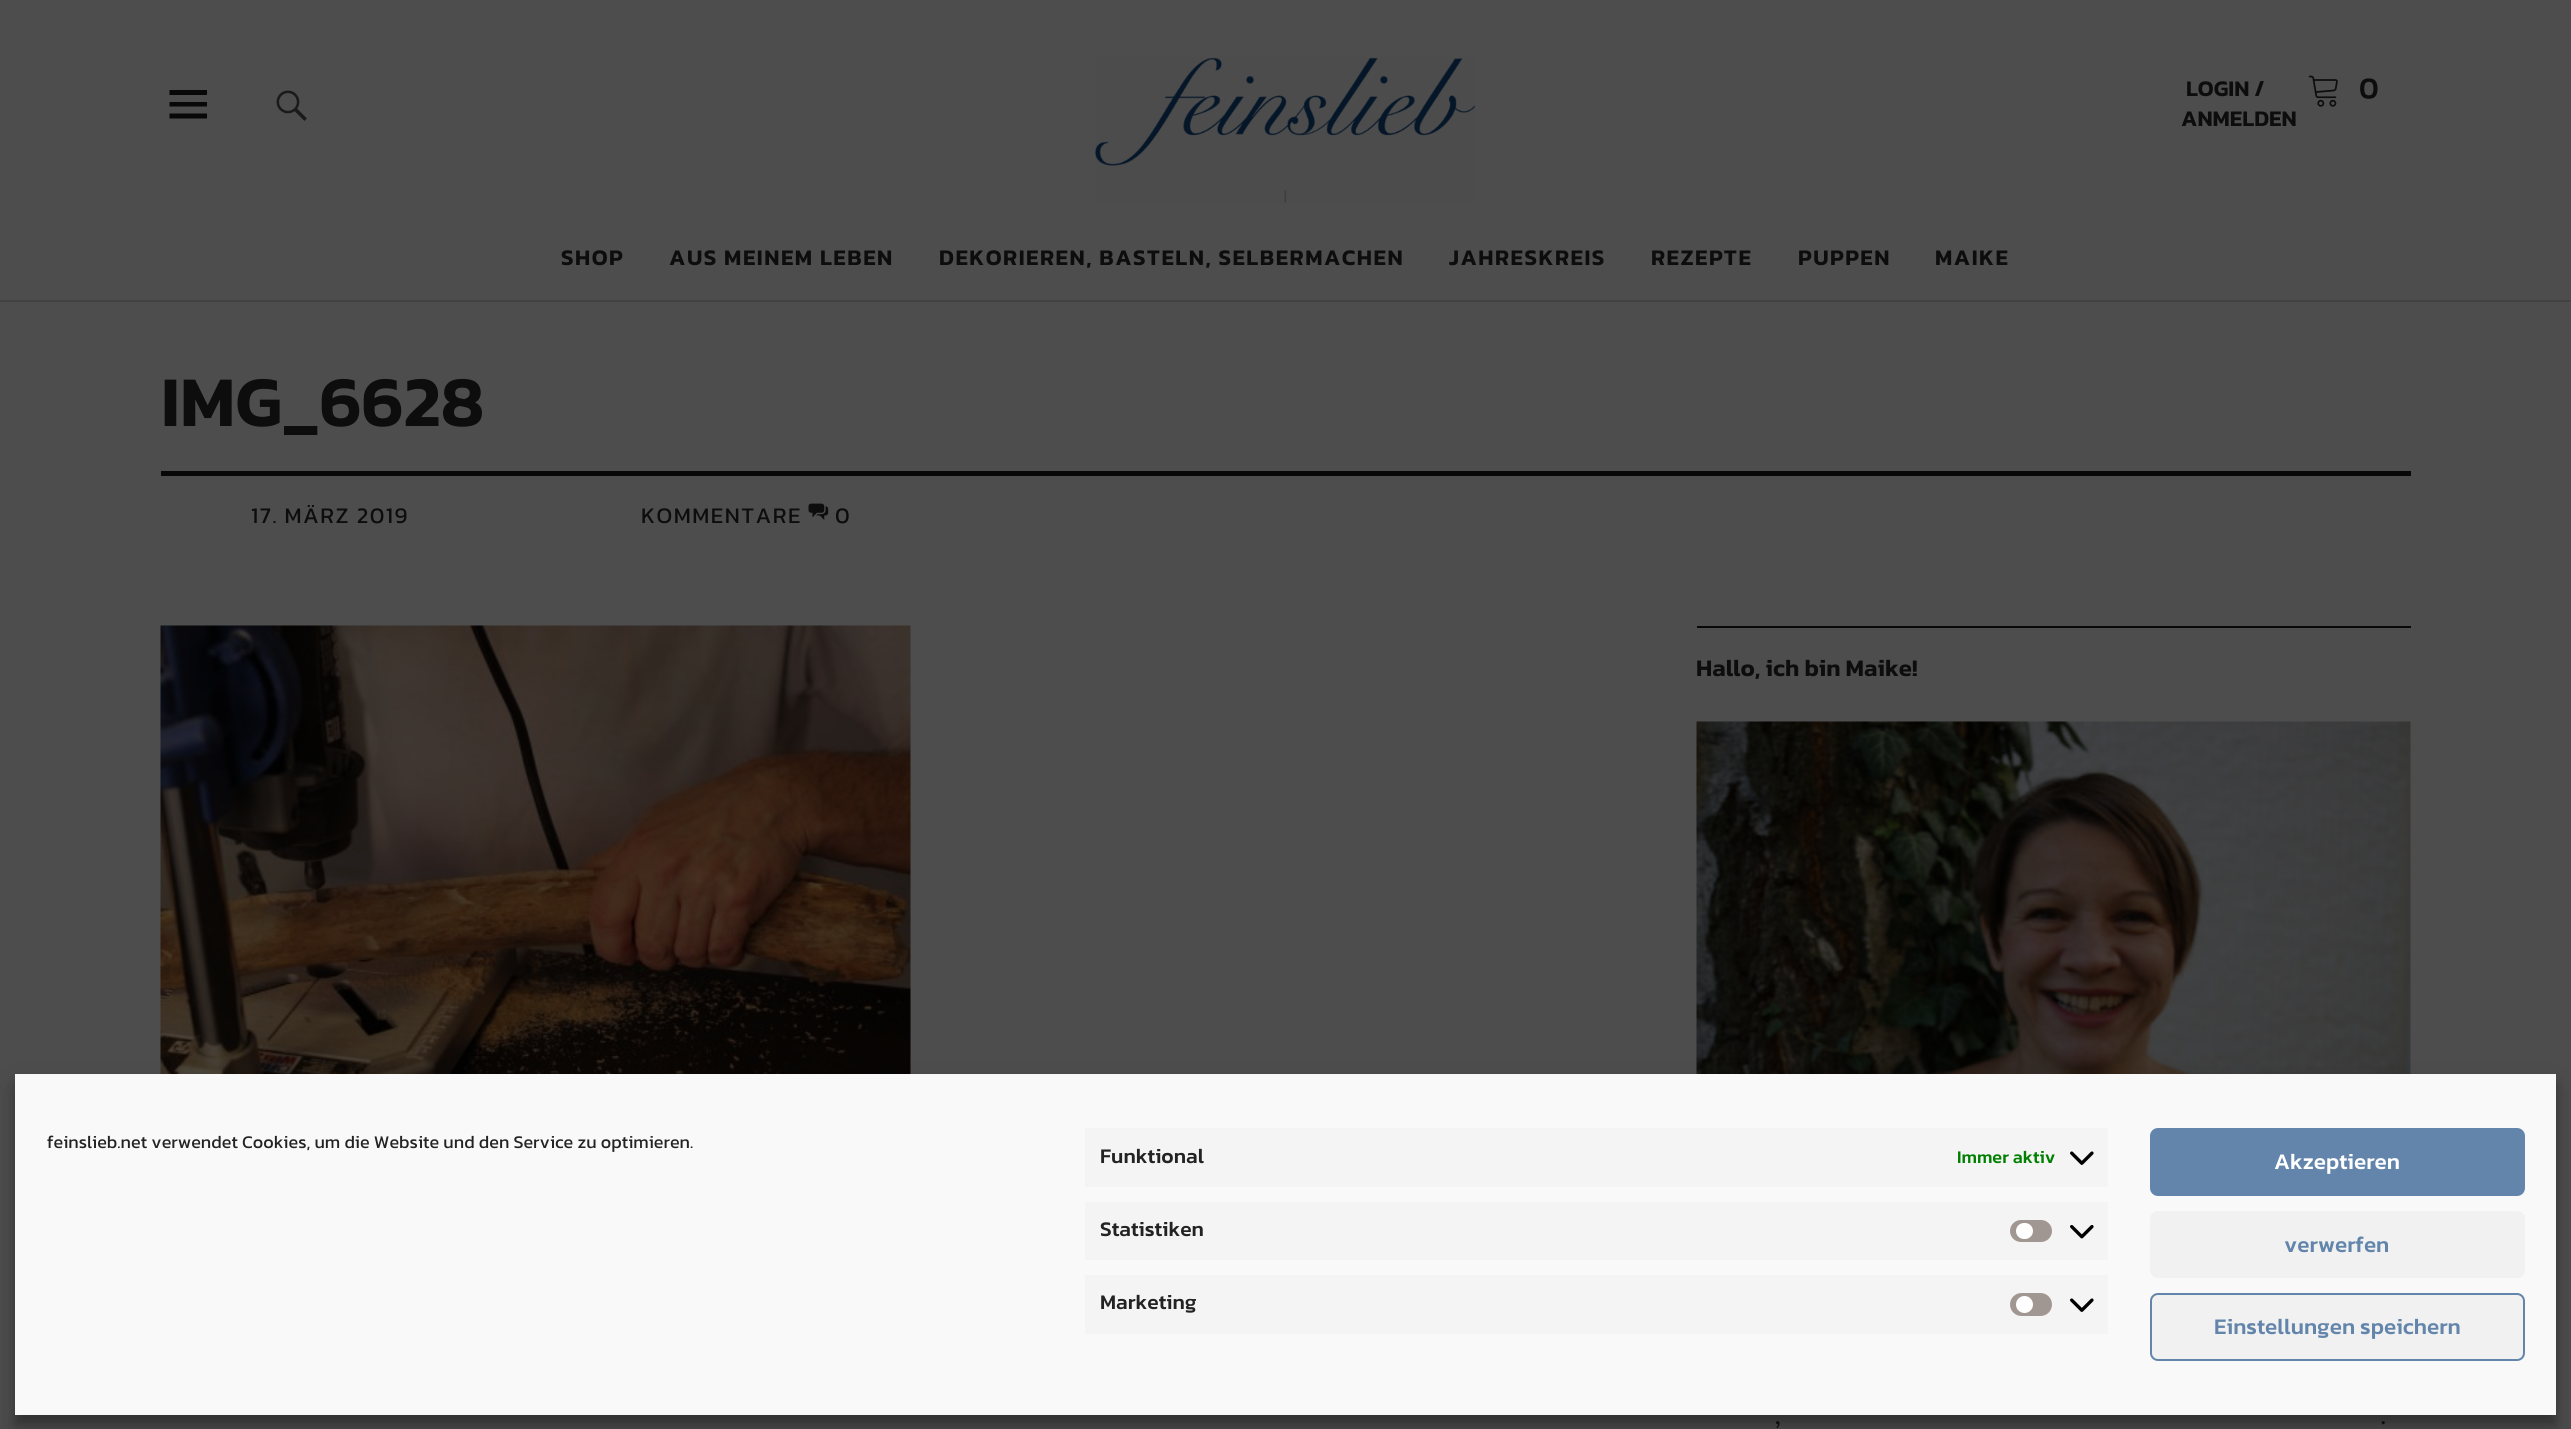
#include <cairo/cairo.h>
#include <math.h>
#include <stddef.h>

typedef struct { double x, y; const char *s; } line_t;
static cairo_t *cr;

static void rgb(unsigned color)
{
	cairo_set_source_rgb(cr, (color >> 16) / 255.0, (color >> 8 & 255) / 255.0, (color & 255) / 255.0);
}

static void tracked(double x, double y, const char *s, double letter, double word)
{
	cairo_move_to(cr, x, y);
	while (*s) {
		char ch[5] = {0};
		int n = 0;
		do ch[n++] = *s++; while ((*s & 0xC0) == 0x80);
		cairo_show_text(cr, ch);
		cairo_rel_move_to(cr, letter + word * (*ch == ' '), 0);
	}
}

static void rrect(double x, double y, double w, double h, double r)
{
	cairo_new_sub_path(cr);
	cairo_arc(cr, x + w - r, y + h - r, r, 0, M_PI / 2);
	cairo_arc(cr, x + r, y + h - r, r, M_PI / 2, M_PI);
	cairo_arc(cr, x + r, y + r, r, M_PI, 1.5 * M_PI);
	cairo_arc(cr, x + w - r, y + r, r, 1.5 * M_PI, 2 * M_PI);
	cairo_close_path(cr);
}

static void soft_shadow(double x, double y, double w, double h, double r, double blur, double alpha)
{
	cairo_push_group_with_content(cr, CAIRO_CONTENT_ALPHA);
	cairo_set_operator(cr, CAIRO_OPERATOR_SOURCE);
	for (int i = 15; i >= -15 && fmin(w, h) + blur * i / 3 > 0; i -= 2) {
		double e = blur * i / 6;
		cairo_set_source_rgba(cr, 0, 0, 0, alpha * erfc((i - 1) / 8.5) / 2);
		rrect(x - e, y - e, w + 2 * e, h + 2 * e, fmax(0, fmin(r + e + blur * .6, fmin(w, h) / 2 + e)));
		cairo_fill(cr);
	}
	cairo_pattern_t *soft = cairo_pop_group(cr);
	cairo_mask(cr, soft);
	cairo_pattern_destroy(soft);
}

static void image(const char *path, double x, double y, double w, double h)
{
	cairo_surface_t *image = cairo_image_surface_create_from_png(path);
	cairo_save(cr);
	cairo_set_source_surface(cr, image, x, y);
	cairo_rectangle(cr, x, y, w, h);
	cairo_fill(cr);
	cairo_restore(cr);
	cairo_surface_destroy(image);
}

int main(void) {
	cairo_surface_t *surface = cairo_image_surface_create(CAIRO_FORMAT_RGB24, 2571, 1429);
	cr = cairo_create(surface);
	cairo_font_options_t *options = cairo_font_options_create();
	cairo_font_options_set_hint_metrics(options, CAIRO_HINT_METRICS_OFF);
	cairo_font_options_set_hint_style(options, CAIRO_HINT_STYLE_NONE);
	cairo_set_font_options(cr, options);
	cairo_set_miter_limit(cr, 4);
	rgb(0x4d4d4d);
	cairo_paint(cr);
	rgb(0x424242);
	cairo_rectangle(cr, 0, 300, 2571, 2);
	cairo_fill(cr);
	image("img/1.png", 276, 90, 31, 31);
	rgb(0x080808);
	cairo_new_path(cr);
	cairo_move_to(cr, 169.5, 118.5);
	cairo_line_to(cr, 169.5, 113.5);
	cairo_line_to(cr, 207, 113.5);
	cairo_line_to(cr, 207, 118.5);
	cairo_close_path(cr);
	cairo_move_to(cr, 169.5, 90);
	cairo_line_to(cr, 207, 90);
	cairo_line_to(cr, 207, 95);
	cairo_line_to(cr, 169.5, 95);
	cairo_close_path(cr);
	cairo_move_to(cr, 169.5, 106.5);
	cairo_line_to(cr, 169.5, 102);
	cairo_line_to(cr, 207, 102);
	cairo_line_to(cr, 207, 106.5);
	cairo_close_path(cr);
	cairo_fill(cr);
	image("img/2.png", 1095, 57, 381, 146);
	image("img/3.png", 2308, 75, 30, 32);
	cairo_rectangle(cr, 161, 471, 2250, 5);
	cairo_fill(cr);
	image("img/4.png", 808, 503, 21, 17);
	image("img/5.png", 160, 625, 751, 449);
	cairo_rectangle(cr, 1697, 626, 714, 2);
	cairo_fill(cr);
	image("img/6.png", 1696, 721, 715, 353);
	rgb(0x000000);
	soft_shadow(15, 1083, 2541, 341, 0, 4.5, 0.23);
	soft_shadow(15, 1089, 2541, 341, 0, 15, 0.19);
	rgb(0xf9f9f9);
	cairo_rectangle(cr, 15, 1074, 2541, 341);
	cairo_fill(cr);
	rgb(0xf4f4f4);
	cairo_rectangle(cr, 1085, 1128, 1023, 59);
	cairo_fill(cr);
	image("img/7.png", 2070, 1151, 24, 14);
	cairo_rectangle(cr, 1085, 1202, 1023, 58);
	cairo_fill(cr);
	rgb(0xa09793);
	rrect(2010, 1220, 42, 22, 11);
	cairo_fill(cr);
	rgb(0xffffff);
	rrect(2016, 1223, 17, 16, 8);
	cairo_fill(cr);
	image("img/8.png", 2070, 1225, 24, 14);
	rgb(0xf4f4f4);
	cairo_rectangle(cr, 1085, 1275, 1023, 59);
	cairo_fill(cr);
	rgb(0xa09793);
	rrect(2010, 1293, 42, 23, 11.5);
	cairo_fill(cr);
	rgb(0xffffff);
	cairo_arc(cr, 2024.5, 1304.5, 8.5, 0, 2 * M_PI);
	cairo_fill(cr);
	image("img/7.png", 2070, 1298, 24, 14);
	rgb(0x6385ab);
	rrect(2151, 1129, 373, 66, 7);
	cairo_fill_preserve(cr);
	cairo_stroke(cr);
	rgb(0xf1f1f1);
	rrect(2150, 1211, 375, 67, 8);
	cairo_fill(cr);
	rrect(2151, 1294, 373, 66, 7);
	cairo_fill_preserve(cr);
	rgb(0x6385ab);
	cairo_stroke(cr);
	cairo_select_font_face(cr, "Kanit SemiBold", CAIRO_FONT_SLANT_NORMAL, CAIRO_FONT_WEIGHT_NORMAL);
	cairo_set_font_size(cr, 22.5);
	rgb(0x0d0d0d);
	cairo_move_to(cr, 2186, 96);
	cairo_show_text(cr, "LOGIN /");
	cairo_move_to(cr, 2181, 126);
	cairo_show_text(cr, "ANMELDEN");
	cairo_select_font_face(cr, "Kanit Medium", CAIRO_FONT_SLANT_NORMAL, CAIRO_FONT_WEIGHT_NORMAL);
	cairo_set_font_size(cr, 30);
	cairo_move_to(cr, 2359, 98);
	cairo_show_text(cr, "0");
	cairo_select_font_face(cr, "Kanit SemiBold", CAIRO_FONT_SLANT_NORMAL, CAIRO_FONT_WEIGHT_NORMAL);
	cairo_set_font_size(cr, 22.5);
	{
		static const line_t items[] = {
			{561, 265, "SHOP"},
			{669, 265, "AUS MEINEM LEBEN"},
			{939, 265, "DEKORIEREN, BASTELN, SELBERMACHEN"},
			{1449, 265, "JAHRESKREIS"},
			{1651, 265, "REZEPTE"},
			{1798, 265, "PUPPEN"},
			{1935, 265, "MAIKE"},
		};
		for (size_t i = 0; i < sizeof items / sizeof *items; i++) {
			tracked(items[i].x, items[i].y, items[i].s, 1.5, 0);
		}
	}
	cairo_set_font_size(cr, 72);
	cairo_move_to(cr, 161, 426);
	cairo_show_text(cr, "IMG_6628");
	cairo_select_font_face(cr, "Kanit", CAIRO_FONT_SLANT_NORMAL, CAIRO_FONT_WEIGHT_NORMAL);
	cairo_set_font_size(cr, 22.5);
	{
		static const line_t items[] = {
			{251, 523, "17. MÄRZ 2019"},
			{641, 523, "KOMMENTARE"},
			{835, 523, "0"},
		};
		for (size_t i = 0; i < sizeof items / sizeof *items; i++) {
			tracked(items[i].x, items[i].y, items[i].s, 1.5, 0);
		}
	}
	cairo_select_font_face(cr, "Kanit SemiBold", CAIRO_FONT_SLANT_NORMAL, CAIRO_FONT_WEIGHT_NORMAL);
	cairo_set_font_size(cr, 24);
	cairo_move_to(cr, 1696, 676);
	cairo_show_text(cr, "Hallo, ich bin Maike!");
	cairo_select_font_face(cr, "Noticia Text", CAIRO_FONT_SLANT_NORMAL, CAIRO_FONT_WEIGHT_NORMAL);
	cairo_move_to(cr, 1775, 1424);
	cairo_show_text(cr, ",");
	cairo_move_to(cr, 2380, 1424);
	cairo_show_text(cr, ".");
	cairo_select_font_face(cr, "Kanit", CAIRO_FONT_SLANT_NORMAL, CAIRO_FONT_WEIGHT_NORMAL);
	cairo_set_font_size(cr, 18);
	rgb(0x232323);
	cairo_move_to(cr, 47, 1148);
	cairo_show_text(cr, "feinslieb.net verwendet Cookies, um die Website und den Service zu optimieren.");
	cairo_select_font_face(cr, "Kanit Medium", CAIRO_FONT_SLANT_NORMAL, CAIRO_FONT_WEIGHT_NORMAL);
	cairo_set_font_size(cr, 21);
	cairo_move_to(cr, 1100, 1163);
	cairo_show_text(cr, "Funktional");
	cairo_set_font_size(cr, 18);
	rgb(0x008000);
	cairo_move_to(cr, 1957, 1163);
	cairo_show_text(cr, "Immer aktiv");
	cairo_set_font_size(cr, 21);
	rgb(0x232323);
	cairo_move_to(cr, 1100, 1236);
	cairo_show_text(cr, "Statistiken");
	cairo_move_to(cr, 1100, 1309);
	cairo_show_text(cr, "Marketing");
	cairo_set_font_size(cr, 22.5);
	rgb(0xffffff);
	cairo_move_to(cr, 2274, 1169);
	cairo_show_text(cr, "Akzeptieren");
	rgb(0x6385ab);
	cairo_move_to(cr, 2284, 1252);
	cairo_show_text(cr, "verwerfen");
	cairo_move_to(cr, 2214, 1334);
	cairo_show_text(cr, "Einstellungen speichern");
	cairo_surface_write_to_png(surface, "page.png");
	cairo_font_options_destroy(options);
	cairo_destroy(cr);
	cairo_surface_destroy(surface);
	return 0;
}
